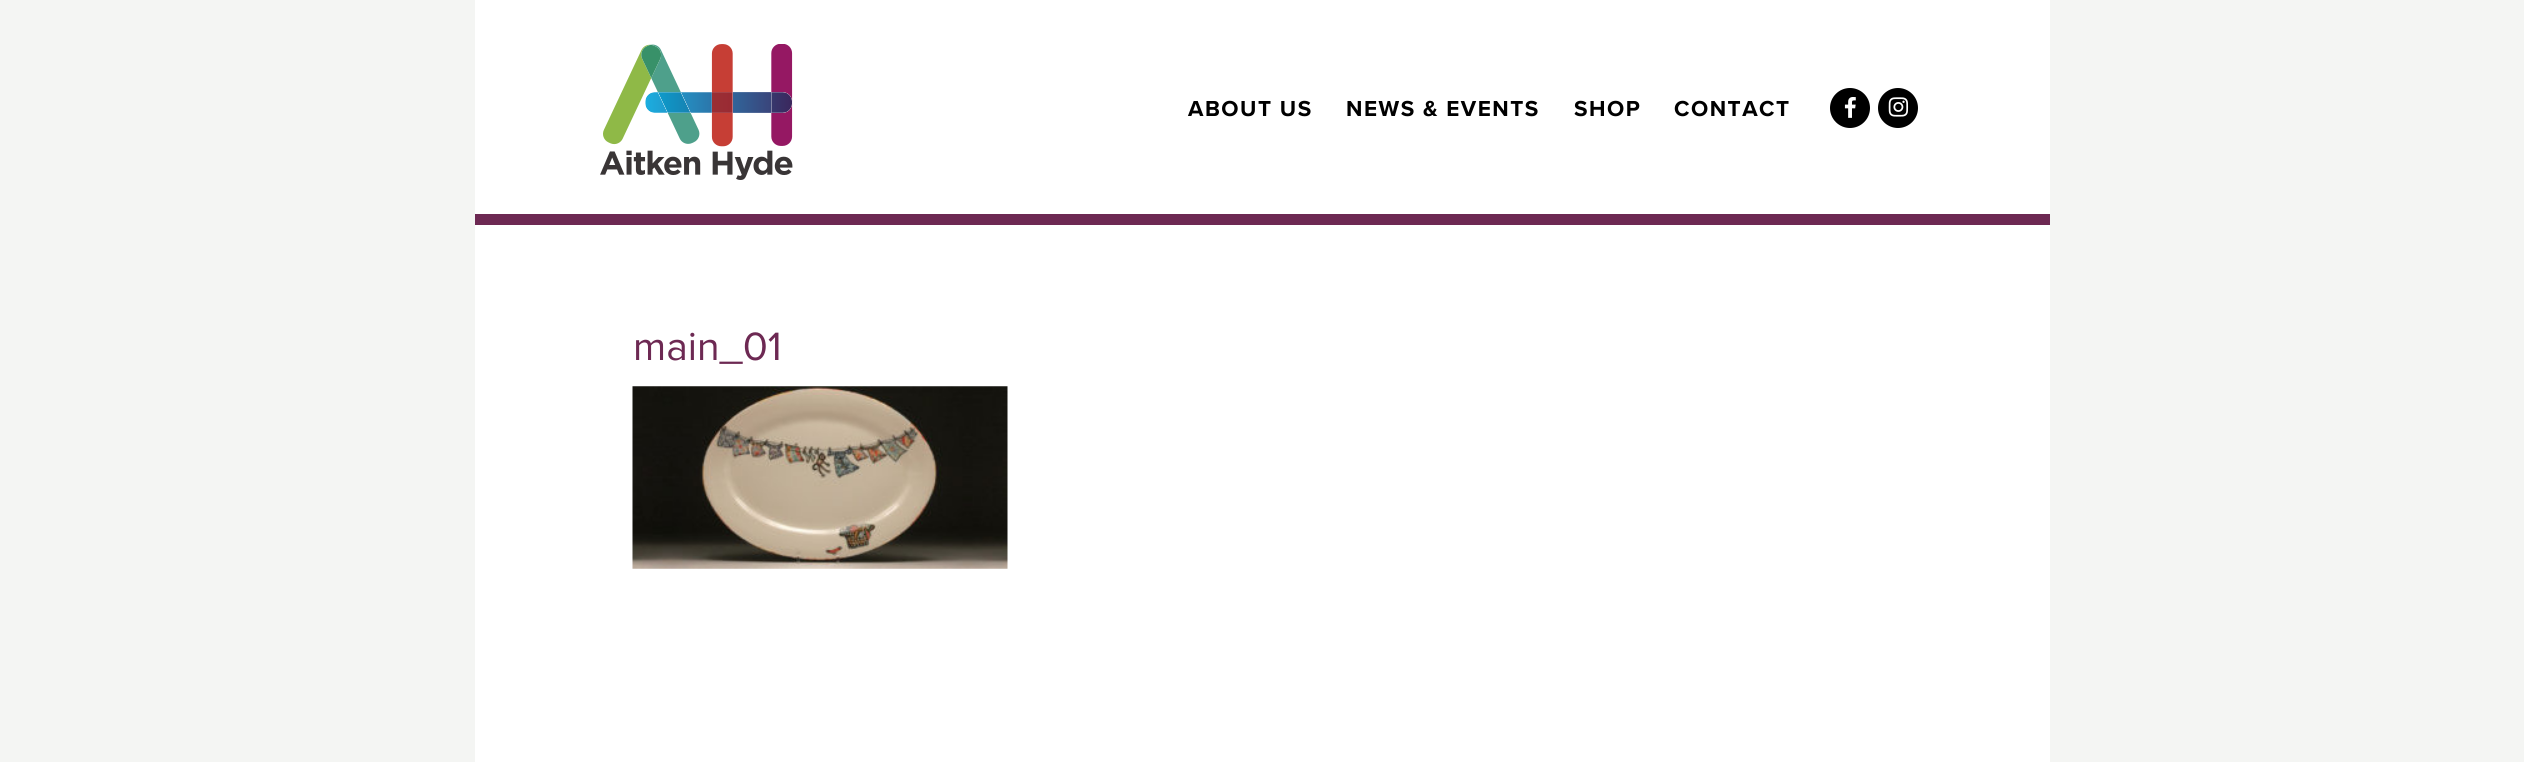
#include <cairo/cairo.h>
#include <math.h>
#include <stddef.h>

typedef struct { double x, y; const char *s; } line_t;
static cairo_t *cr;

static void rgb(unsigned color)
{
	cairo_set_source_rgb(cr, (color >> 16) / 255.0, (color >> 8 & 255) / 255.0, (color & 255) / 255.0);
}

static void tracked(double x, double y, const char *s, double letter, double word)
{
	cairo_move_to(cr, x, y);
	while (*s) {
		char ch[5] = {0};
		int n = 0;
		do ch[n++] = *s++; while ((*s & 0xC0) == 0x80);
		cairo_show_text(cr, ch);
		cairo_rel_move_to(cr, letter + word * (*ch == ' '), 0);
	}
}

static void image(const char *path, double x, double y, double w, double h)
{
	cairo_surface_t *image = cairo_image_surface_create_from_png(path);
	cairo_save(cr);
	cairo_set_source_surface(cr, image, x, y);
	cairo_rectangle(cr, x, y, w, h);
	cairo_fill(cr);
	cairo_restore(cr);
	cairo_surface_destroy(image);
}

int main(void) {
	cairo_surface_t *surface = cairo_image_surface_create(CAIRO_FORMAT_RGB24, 2524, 762);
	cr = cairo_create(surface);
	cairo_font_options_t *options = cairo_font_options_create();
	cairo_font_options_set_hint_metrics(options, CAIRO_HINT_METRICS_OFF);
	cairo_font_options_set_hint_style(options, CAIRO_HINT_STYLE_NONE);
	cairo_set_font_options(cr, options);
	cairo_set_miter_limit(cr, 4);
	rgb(0xf4f5f3);
	cairo_paint(cr);
	rgb(0xffffff);
	cairo_rectangle(cr, 475, 0, 1575, 762);
	cairo_fill(cr);
	rgb(0x6d2953);
	cairo_rectangle(cr, 475, 214, 1575, 11);
	cairo_fill(cr);
	image("img/1.png", 600, 44, 193, 136);
	rgb(0x000000);
	cairo_arc(cr, 1850, 108, 20, 0, 2 * M_PI);
	cairo_fill(cr);
	image("img/2.png", 1844, 97, 12, 21);
	cairo_arc(cr, 1898, 108, 20, 0, 2 * M_PI);
	cairo_fill(cr);
	image("img/3.png", 1888, 97, 21, 20);
	image("img/4.png", 632, 386, 376, 183);
	cairo_select_font_face(cr, "Proxima Nova", CAIRO_FONT_SLANT_NORMAL, CAIRO_FONT_WEIGHT_BOLD);
	cairo_set_font_size(cr, 22.5);
	{
		static const line_t items[] = {
			{1188, 116, "ABOUT US"},
			{1346, 116, "NEWS & EVENTS"},
			{1574, 116, "SHOP"},
			{1674, 116, "CONTACT"},
		};
		for (size_t i = 0; i < sizeof items / sizeof *items; i++) {
			tracked(items[i].x, items[i].y, items[i].s, 1.5, 0);
		}
	}
	cairo_select_font_face(cr, "Proxima Nova", CAIRO_FONT_SLANT_NORMAL, CAIRO_FONT_WEIGHT_NORMAL);
	cairo_set_font_size(cr, 41);
	rgb(0x6d2953);
	cairo_move_to(cr, 633, 360);
	cairo_show_text(cr, "main_01");
	cairo_surface_write_to_png(surface, "page.png");
	cairo_font_options_destroy(options);
	cairo_destroy(cr);
	cairo_surface_destroy(surface);
	return 0;
}
